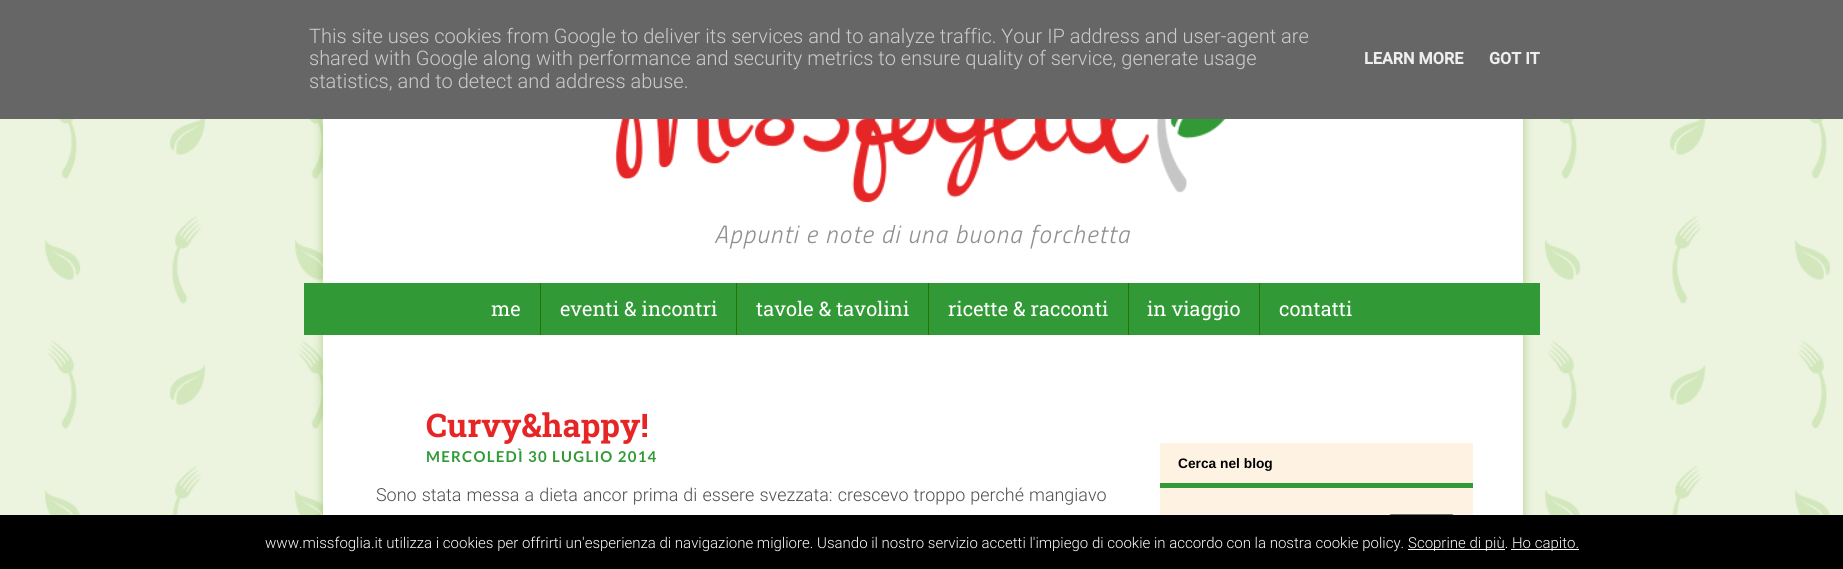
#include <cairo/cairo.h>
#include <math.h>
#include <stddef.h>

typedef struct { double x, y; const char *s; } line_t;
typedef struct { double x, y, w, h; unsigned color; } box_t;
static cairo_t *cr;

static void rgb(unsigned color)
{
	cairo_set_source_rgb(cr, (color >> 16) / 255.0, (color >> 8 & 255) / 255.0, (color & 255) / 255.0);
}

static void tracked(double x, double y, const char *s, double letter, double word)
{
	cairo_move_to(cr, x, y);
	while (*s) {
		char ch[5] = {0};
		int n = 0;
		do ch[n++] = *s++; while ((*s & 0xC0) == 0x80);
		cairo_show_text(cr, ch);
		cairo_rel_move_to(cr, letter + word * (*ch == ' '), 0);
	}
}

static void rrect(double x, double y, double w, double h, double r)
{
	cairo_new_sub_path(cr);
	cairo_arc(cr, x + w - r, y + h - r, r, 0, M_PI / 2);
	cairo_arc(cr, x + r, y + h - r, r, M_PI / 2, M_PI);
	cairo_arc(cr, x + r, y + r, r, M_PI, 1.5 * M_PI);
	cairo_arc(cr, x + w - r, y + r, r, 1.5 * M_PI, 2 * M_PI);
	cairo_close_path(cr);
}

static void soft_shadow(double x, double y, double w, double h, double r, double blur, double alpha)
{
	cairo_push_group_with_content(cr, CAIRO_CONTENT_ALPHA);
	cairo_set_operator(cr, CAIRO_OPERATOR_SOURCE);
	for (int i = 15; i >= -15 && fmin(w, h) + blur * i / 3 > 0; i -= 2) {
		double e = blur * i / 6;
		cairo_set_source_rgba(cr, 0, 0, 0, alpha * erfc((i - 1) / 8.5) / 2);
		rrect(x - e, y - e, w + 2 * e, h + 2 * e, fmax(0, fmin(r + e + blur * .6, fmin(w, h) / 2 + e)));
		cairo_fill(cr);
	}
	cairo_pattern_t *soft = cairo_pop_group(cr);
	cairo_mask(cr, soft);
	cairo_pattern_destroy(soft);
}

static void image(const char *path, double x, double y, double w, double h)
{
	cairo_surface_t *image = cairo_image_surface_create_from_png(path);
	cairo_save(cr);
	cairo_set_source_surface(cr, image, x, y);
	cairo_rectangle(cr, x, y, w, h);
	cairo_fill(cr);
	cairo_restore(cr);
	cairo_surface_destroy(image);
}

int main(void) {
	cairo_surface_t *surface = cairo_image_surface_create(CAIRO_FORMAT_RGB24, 1843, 569);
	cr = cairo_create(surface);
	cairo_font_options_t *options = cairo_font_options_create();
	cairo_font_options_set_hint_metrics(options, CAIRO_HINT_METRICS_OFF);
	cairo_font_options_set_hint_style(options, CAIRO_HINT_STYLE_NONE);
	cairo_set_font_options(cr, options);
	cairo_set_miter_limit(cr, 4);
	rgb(0xffffff);
	cairo_paint(cr);
	image("img/1.png", 0, 119, 1843, 396);
	rgb(0x6aa72e);
	soft_shadow(323, -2, 1200, 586, 0, 5, 0.5);
	rgb(0x666666);
	cairo_rectangle(cr, 0, 0, 1843, 119);
	cairo_fill(cr);
	rgb(0xffffff);
	cairo_rectangle(cr, 323, 119, 1200, 396);
	cairo_fill(cr);
	image("img/2.png", 615, 119, 611, 84);
	{
		static const box_t items[] = {
			{304, 283, 1236, 52, 0x319a37},
			{540, 283, 1, 52, 0x277105},
			{736, 283, 1, 52, 0x277105},
			{928, 283, 1, 52, 0x277105},
			{1128, 283, 1, 52, 0x277105},
			{1259, 283, 1, 52, 0x277105},
			{1160, 443, 313, 72, 0xfef3e3},
			{1160, 483, 313, 5, 0x319a37},
		};
		for (size_t i = 0; i < sizeof items / sizeof *items; i++) {
			rgb(items[i].color);
			cairo_rectangle(cr, items[i].x, items[i].y, items[i].w, items[i].h);
			cairo_fill(cr);
		}
	}
	rrect(1389.5, 514.5, 64, 25, 2);
	rgb(0x767676);
	cairo_set_line_width(cr, 1);
	cairo_stroke(cr);
	{
		static const box_t items[] = {
			{0, 515, 1843, 54, 0x000000},
			{1408, 549, 97, 1, 0xffffff},
			{1511, 549, 68, 1, 0xffffff},
		};
		for (size_t i = 0; i < sizeof items / sizeof *items; i++) {
			rgb(items[i].color);
			cairo_rectangle(cr, items[i].x, items[i].y, items[i].w, items[i].h);
			cairo_fill(cr);
		}
	}
	cairo_select_font_face(cr, "Roboto Light", CAIRO_FONT_SLANT_NORMAL, CAIRO_FONT_WEIGHT_NORMAL);
	cairo_set_font_size(cr, 20);
	rgb(0xcccccc);
	{
		static const line_t items[] = {
			{309, 43, "This site uses cookies from Google to deliver its services and to analyze traffic. Your IP address and user-agent are"},
			{309, 65, "shared with Google along with performance and security metrics to ensure quality of service, generate usage"},
			{309, 88, "statistics, and to detect and address abuse."},
		};
		for (size_t i = 0; i < sizeof items / sizeof *items; i++) {
			cairo_move_to(cr, items[i].x, items[i].y);
			cairo_show_text(cr, items[i].s);
		}
	}
	cairo_select_font_face(cr, "Roboto", CAIRO_FONT_SLANT_NORMAL, CAIRO_FONT_WEIGHT_BOLD);
	cairo_set_font_size(cr, 16.25);
	rgb(0xeeeeee);
	cairo_move_to(cr, 1364, 64);
	cairo_show_text(cr, "LEARN MORE");
	cairo_move_to(cr, 1489, 64);
	cairo_show_text(cr, "GOT IT");
	cairo_select_font_face(cr, "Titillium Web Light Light", CAIRO_FONT_SLANT_ITALIC, CAIRO_FONT_WEIGHT_NORMAL);
	cairo_set_font_size(cr, 25);
	rgb(0x8f8f8f);
	tracked(714, 243, "Appunti e note di una buona forchetta", 1.25, 0);
	cairo_select_font_face(cr, "Roboto Slab", CAIRO_FONT_SLANT_NORMAL, CAIRO_FONT_WEIGHT_NORMAL);
	cairo_set_font_size(cr, 20);
	rgb(0xffffff);
	{
		static const line_t items[] = {
			{491, 316, "me"},
			{560, 316, "eventi & incontri"},
			{756, 316, "tavole & tavolini"},
			{948, 316, "ricette & racconti"},
			{1147, 316, "in viaggio"},
			{1279, 316, "contatti"},
		};
		for (size_t i = 0; i < sizeof items / sizeof *items; i++) {
			cairo_move_to(cr, items[i].x, items[i].y);
			cairo_show_text(cr, items[i].s);
		}
	}
	cairo_select_font_face(cr, "Roboto Slab", CAIRO_FONT_SLANT_NORMAL, CAIRO_FONT_WEIGHT_BOLD);
	cairo_set_font_size(cr, 32.5);
	rgb(0xe62626);
	cairo_move_to(cr, 426, 437);
	cairo_show_text(cr, "Curvy&happy!");
	cairo_select_font_face(cr, "Lato", CAIRO_FONT_SLANT_NORMAL, CAIRO_FONT_WEIGHT_BOLD);
	cairo_set_font_size(cr, 15);
	rgb(0x319a37);
	tracked(426, 462, "MERCOLEDÌ 30 LUGLIO 2014", 1.25, 0);
	cairo_select_font_face(cr, "Roboto Light", CAIRO_FONT_SLANT_NORMAL, CAIRO_FONT_WEIGHT_NORMAL);
	cairo_set_font_size(cr, 17.9);
	rgb(0x514b47);
	tracked(376, 501, "Sono stata messa a dieta ancor prima di essere svezzata: crescevo troppo perché mangiavo", 0, 0.75);
	cairo_select_font_face(cr, "Liberation Sans", CAIRO_FONT_SLANT_NORMAL, CAIRO_FONT_WEIGHT_BOLD);
	cairo_set_font_size(cr, 13.75);
	rgb(0x000000);
	cairo_move_to(cr, 1178, 468);
	cairo_show_text(cr, "Cerca nel blog");
	cairo_select_font_face(cr, "Roboto Light", CAIRO_FONT_SLANT_NORMAL, CAIRO_FONT_WEIGHT_NORMAL);
	cairo_set_font_size(cr, 15);
	rgb(0xffffff);
	{
		static const line_t items[] = {
			{265, 548, "www.missfoglia.it utilizza i cookies per offrirti un'esperienza di navigazione migliore. Usando il nostro servizio accetti l'impiego di cookie in accordo con la nostra cookie policy."},
			{1408, 548, "Scoprine di più."},
			{1512, 548, "Ho capito."},
		};
		for (size_t i = 0; i < sizeof items / sizeof *items; i++) {
			cairo_move_to(cr, items[i].x, items[i].y);
			cairo_show_text(cr, items[i].s);
		}
	}
	cairo_surface_write_to_png(surface, "page.png");
	cairo_font_options_destroy(options);
	cairo_destroy(cr);
	cairo_surface_destroy(surface);
	return 0;
}
